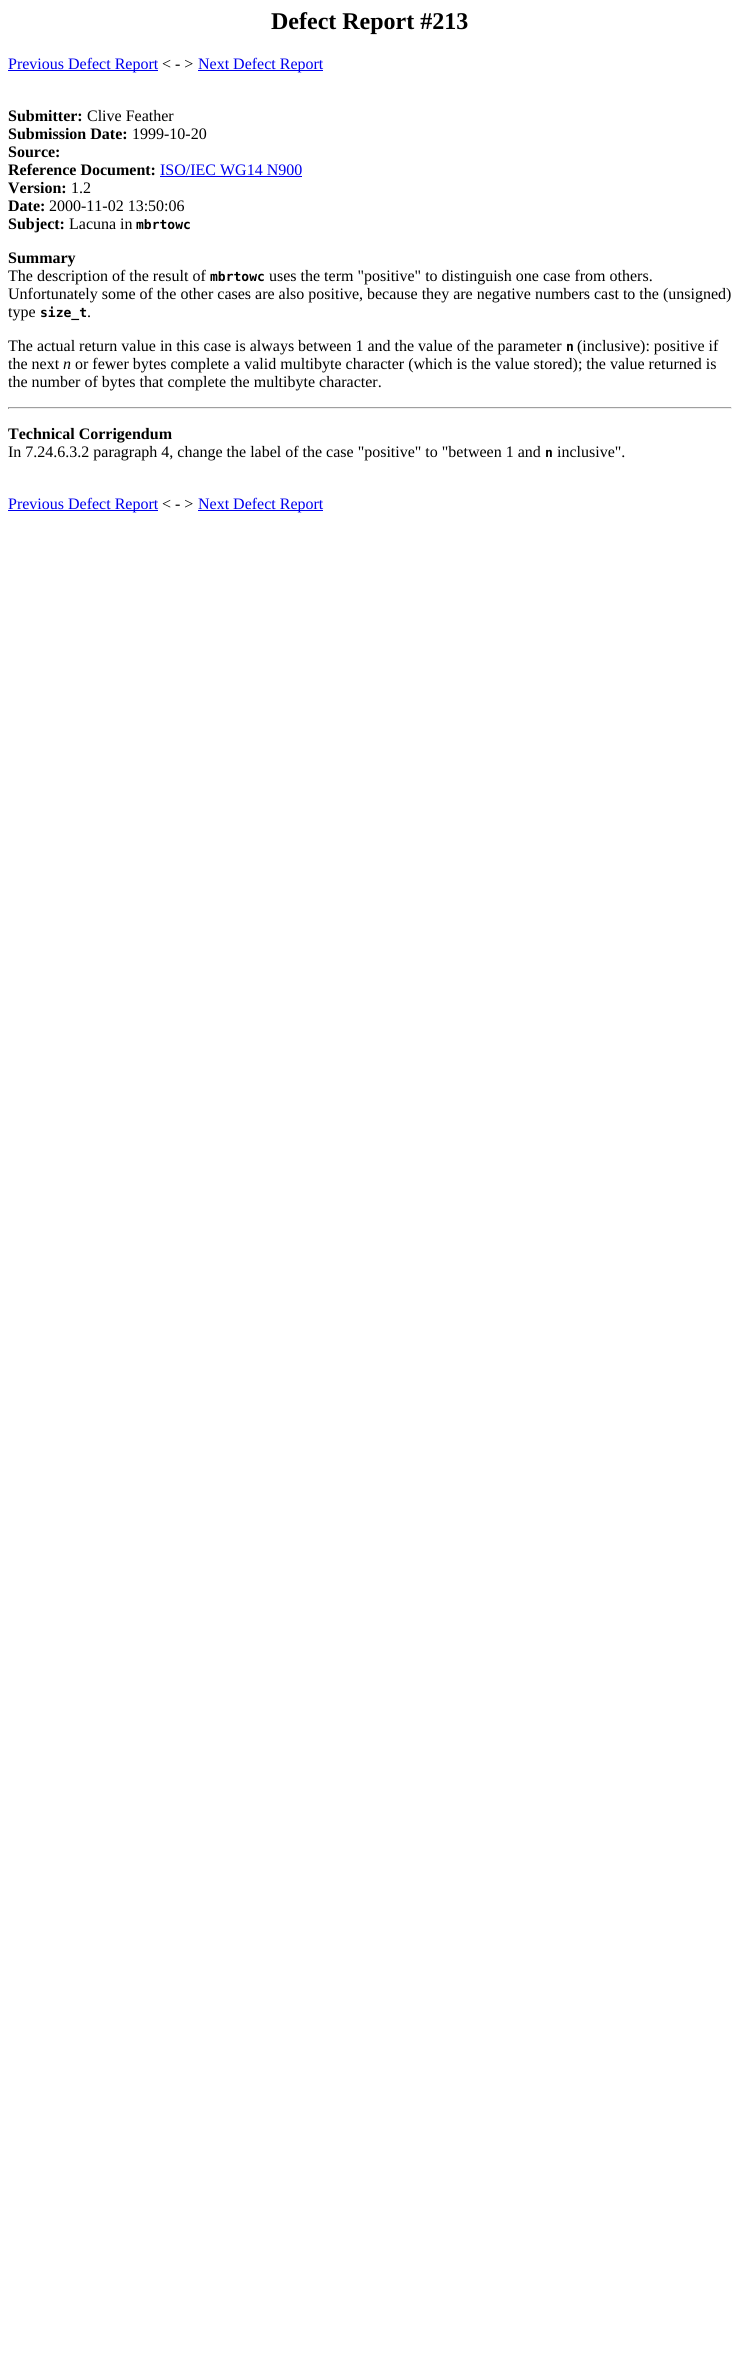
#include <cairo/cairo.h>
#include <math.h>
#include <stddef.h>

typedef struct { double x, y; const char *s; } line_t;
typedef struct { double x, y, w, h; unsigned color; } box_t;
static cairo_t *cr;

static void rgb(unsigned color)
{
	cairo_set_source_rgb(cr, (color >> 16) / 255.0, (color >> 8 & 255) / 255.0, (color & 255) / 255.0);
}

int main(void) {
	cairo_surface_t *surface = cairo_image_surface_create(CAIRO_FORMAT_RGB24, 740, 2380);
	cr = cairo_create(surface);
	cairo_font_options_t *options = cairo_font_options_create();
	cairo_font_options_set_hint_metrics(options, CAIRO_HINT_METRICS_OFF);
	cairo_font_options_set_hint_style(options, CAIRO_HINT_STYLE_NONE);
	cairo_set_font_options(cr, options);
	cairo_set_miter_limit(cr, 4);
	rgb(0xffffff);
	cairo_paint(cr);
	{
		static const box_t items[] = {
			{8, 70, 150, 1, 0x0000ee},
			{198, 70, 125, 1, 0x0000ee},
			{160, 176, 142, 1, 0x0000ee},
			{8, 407, 724, 1, 0x9f9f9f},
			{731, 407, 1, 2, 0xeeeeee},
			{8, 408, 724, 1, 0xeeeeee},
			{8, 407, 1, 2, 0x9f9f9f},
			{8, 510, 150, 1, 0x0000ee},
			{198, 510, 125, 1, 0x0000ee},
		};
		for (size_t i = 0; i < sizeof items / sizeof *items; i++) {
			rgb(items[i].color);
			cairo_rectangle(cr, items[i].x, items[i].y, items[i].w, items[i].h);
			cairo_fill(cr);
		}
	}
	cairo_select_font_face(cr, "Liberation Serif", CAIRO_FONT_SLANT_NORMAL, CAIRO_FONT_WEIGHT_BOLD);
	cairo_set_font_size(cr, 24);
	rgb(0x000000);
	cairo_move_to(cr, 271, 29);
	cairo_show_text(cr, "Defect Report #213");
	cairo_select_font_face(cr, "Liberation Serif", CAIRO_FONT_SLANT_NORMAL, CAIRO_FONT_WEIGHT_NORMAL);
	cairo_set_font_size(cr, 16);
	rgb(0x0000ee);
	cairo_move_to(cr, 8, 69);
	cairo_show_text(cr, "Previous Defect Report");
	rgb(0x000000);
	cairo_move_to(cr, 162, 69);
	cairo_show_text(cr, "< - >");
	rgb(0x0000ee);
	cairo_move_to(cr, 198, 69);
	cairo_show_text(cr, "Next Defect Report");
	cairo_select_font_face(cr, "Liberation Serif", CAIRO_FONT_SLANT_NORMAL, CAIRO_FONT_WEIGHT_BOLD);
	rgb(0x000000);
	cairo_move_to(cr, 8, 121);
	cairo_show_text(cr, "Submitter:");
	cairo_select_font_face(cr, "Liberation Serif", CAIRO_FONT_SLANT_NORMAL, CAIRO_FONT_WEIGHT_NORMAL);
	cairo_move_to(cr, 87, 121);
	cairo_show_text(cr, "Clive Feather");
	cairo_select_font_face(cr, "Liberation Serif", CAIRO_FONT_SLANT_NORMAL, CAIRO_FONT_WEIGHT_BOLD);
	cairo_move_to(cr, 8, 139);
	cairo_show_text(cr, "Submission Date:");
	cairo_select_font_face(cr, "Liberation Serif", CAIRO_FONT_SLANT_NORMAL, CAIRO_FONT_WEIGHT_NORMAL);
	cairo_move_to(cr, 132, 139);
	cairo_show_text(cr, "1999-10-20");
	cairo_select_font_face(cr, "Liberation Serif", CAIRO_FONT_SLANT_NORMAL, CAIRO_FONT_WEIGHT_BOLD);
	cairo_move_to(cr, 8, 157);
	cairo_show_text(cr, "Source:");
	cairo_move_to(cr, 8, 175);
	cairo_show_text(cr, "Reference Document:");
	cairo_select_font_face(cr, "Liberation Serif", CAIRO_FONT_SLANT_NORMAL, CAIRO_FONT_WEIGHT_NORMAL);
	rgb(0x0000ee);
	cairo_move_to(cr, 160, 175);
	cairo_show_text(cr, "ISO/IEC WG14 N900");
	cairo_select_font_face(cr, "Liberation Serif", CAIRO_FONT_SLANT_NORMAL, CAIRO_FONT_WEIGHT_BOLD);
	rgb(0x000000);
	cairo_move_to(cr, 8, 193);
	cairo_show_text(cr, "Version:");
	cairo_select_font_face(cr, "Liberation Serif", CAIRO_FONT_SLANT_NORMAL, CAIRO_FONT_WEIGHT_NORMAL);
	cairo_move_to(cr, 71, 193);
	cairo_show_text(cr, "1.2");
	cairo_select_font_face(cr, "Liberation Serif", CAIRO_FONT_SLANT_NORMAL, CAIRO_FONT_WEIGHT_BOLD);
	cairo_move_to(cr, 8, 211);
	cairo_show_text(cr, "Date:");
	cairo_select_font_face(cr, "Liberation Serif", CAIRO_FONT_SLANT_NORMAL, CAIRO_FONT_WEIGHT_NORMAL);
	cairo_move_to(cr, 49, 211);
	cairo_show_text(cr, "2000-11-02 13:50:06");
	cairo_select_font_face(cr, "Liberation Serif", CAIRO_FONT_SLANT_NORMAL, CAIRO_FONT_WEIGHT_BOLD);
	cairo_move_to(cr, 8, 229);
	cairo_show_text(cr, "Subject:");
	cairo_select_font_face(cr, "Liberation Serif", CAIRO_FONT_SLANT_NORMAL, CAIRO_FONT_WEIGHT_NORMAL);
	cairo_move_to(cr, 69, 229);
	cairo_show_text(cr, "Lacuna in");
	cairo_select_font_face(cr, "DejaVu Sans Mono", CAIRO_FONT_SLANT_NORMAL, CAIRO_FONT_WEIGHT_BOLD);
	cairo_set_font_size(cr, 13);
	cairo_move_to(cr, 136, 229);
	cairo_show_text(cr, "mbrtowc");
	cairo_select_font_face(cr, "Liberation Serif", CAIRO_FONT_SLANT_NORMAL, CAIRO_FONT_WEIGHT_BOLD);
	cairo_set_font_size(cr, 16);
	cairo_move_to(cr, 8, 263);
	cairo_show_text(cr, "Summary");
	cairo_select_font_face(cr, "Liberation Serif", CAIRO_FONT_SLANT_NORMAL, CAIRO_FONT_WEIGHT_NORMAL);
	cairo_move_to(cr, 8, 281);
	cairo_show_text(cr, "The description of the result of");
	cairo_select_font_face(cr, "DejaVu Sans Mono", CAIRO_FONT_SLANT_NORMAL, CAIRO_FONT_WEIGHT_BOLD);
	cairo_set_font_size(cr, 13);
	cairo_move_to(cr, 210, 281);
	cairo_show_text(cr, "mbrtowc");
	cairo_select_font_face(cr, "Liberation Serif", CAIRO_FONT_SLANT_NORMAL, CAIRO_FONT_WEIGHT_NORMAL);
	cairo_set_font_size(cr, 16);
	{
		static const line_t items[] = {
			{269, 281, "uses the term \"positive\" to distinguish one case from others."},
			{8, 299, "Unfortunately some of the other cases are also positive, because they are negative numbers cast to the (unsigned)"},
			{8, 317, "type"},
		};
		for (size_t i = 0; i < sizeof items / sizeof *items; i++) {
			cairo_move_to(cr, items[i].x, items[i].y);
			cairo_show_text(cr, items[i].s);
		}
	}
	cairo_select_font_face(cr, "DejaVu Sans Mono", CAIRO_FONT_SLANT_NORMAL, CAIRO_FONT_WEIGHT_BOLD);
	cairo_set_font_size(cr, 13);
	cairo_move_to(cr, 40, 317);
	cairo_show_text(cr, "size_t");
	cairo_select_font_face(cr, "Liberation Serif", CAIRO_FONT_SLANT_NORMAL, CAIRO_FONT_WEIGHT_NORMAL);
	cairo_set_font_size(cr, 16);
	cairo_move_to(cr, 87, 317);
	cairo_show_text(cr, ".");
	cairo_move_to(cr, 8, 351);
	cairo_show_text(cr, "The actual return value in this case is always between 1 and the value of the parameter");
	cairo_select_font_face(cr, "DejaVu Sans Mono", CAIRO_FONT_SLANT_NORMAL, CAIRO_FONT_WEIGHT_BOLD);
	cairo_set_font_size(cr, 13);
	cairo_move_to(cr, 566, 351);
	cairo_show_text(cr, "n");
	cairo_select_font_face(cr, "Liberation Serif", CAIRO_FONT_SLANT_NORMAL, CAIRO_FONT_WEIGHT_NORMAL);
	cairo_set_font_size(cr, 16);
	cairo_move_to(cr, 577, 351);
	cairo_show_text(cr, "(inclusive): positive if");
	cairo_move_to(cr, 8, 369);
	cairo_show_text(cr, "the next");
	cairo_select_font_face(cr, "Liberation Serif", CAIRO_FONT_SLANT_ITALIC, CAIRO_FONT_WEIGHT_NORMAL);
	cairo_move_to(cr, 63, 369);
	cairo_show_text(cr, "n");
	cairo_select_font_face(cr, "Liberation Serif", CAIRO_FONT_SLANT_NORMAL, CAIRO_FONT_WEIGHT_NORMAL);
	cairo_move_to(cr, 75, 369);
	cairo_show_text(cr, "or fewer bytes complete a valid multibyte character (which is the value stored); the value returned is");
	cairo_move_to(cr, 8, 387);
	cairo_show_text(cr, "the number of bytes that complete the multibyte character.");
	cairo_select_font_face(cr, "Liberation Serif", CAIRO_FONT_SLANT_NORMAL, CAIRO_FONT_WEIGHT_BOLD);
	cairo_move_to(cr, 8, 439);
	cairo_show_text(cr, "Technical Corrigendum");
	cairo_select_font_face(cr, "Liberation Serif", CAIRO_FONT_SLANT_NORMAL, CAIRO_FONT_WEIGHT_NORMAL);
	cairo_move_to(cr, 8, 457);
	cairo_show_text(cr, "In 7.24.6.3.2 paragraph 4, change the label of the case \"positive\" to \"between 1 and");
	cairo_select_font_face(cr, "DejaVu Sans Mono", CAIRO_FONT_SLANT_NORMAL, CAIRO_FONT_WEIGHT_BOLD);
	cairo_set_font_size(cr, 13);
	cairo_move_to(cr, 545, 457);
	cairo_show_text(cr, "n");
	cairo_select_font_face(cr, "Liberation Serif", CAIRO_FONT_SLANT_NORMAL, CAIRO_FONT_WEIGHT_NORMAL);
	cairo_set_font_size(cr, 16);
	cairo_move_to(cr, 557, 457);
	cairo_show_text(cr, "inclusive\".");
	rgb(0x0000ee);
	cairo_move_to(cr, 8, 509);
	cairo_show_text(cr, "Previous Defect Report");
	rgb(0x000000);
	cairo_move_to(cr, 162, 509);
	cairo_show_text(cr, "< - >");
	rgb(0x0000ee);
	cairo_move_to(cr, 198, 509);
	cairo_show_text(cr, "Next Defect Report");
	cairo_surface_write_to_png(surface, "page.png");
	cairo_font_options_destroy(options);
	cairo_destroy(cr);
	cairo_surface_destroy(surface);
	return 0;
}
